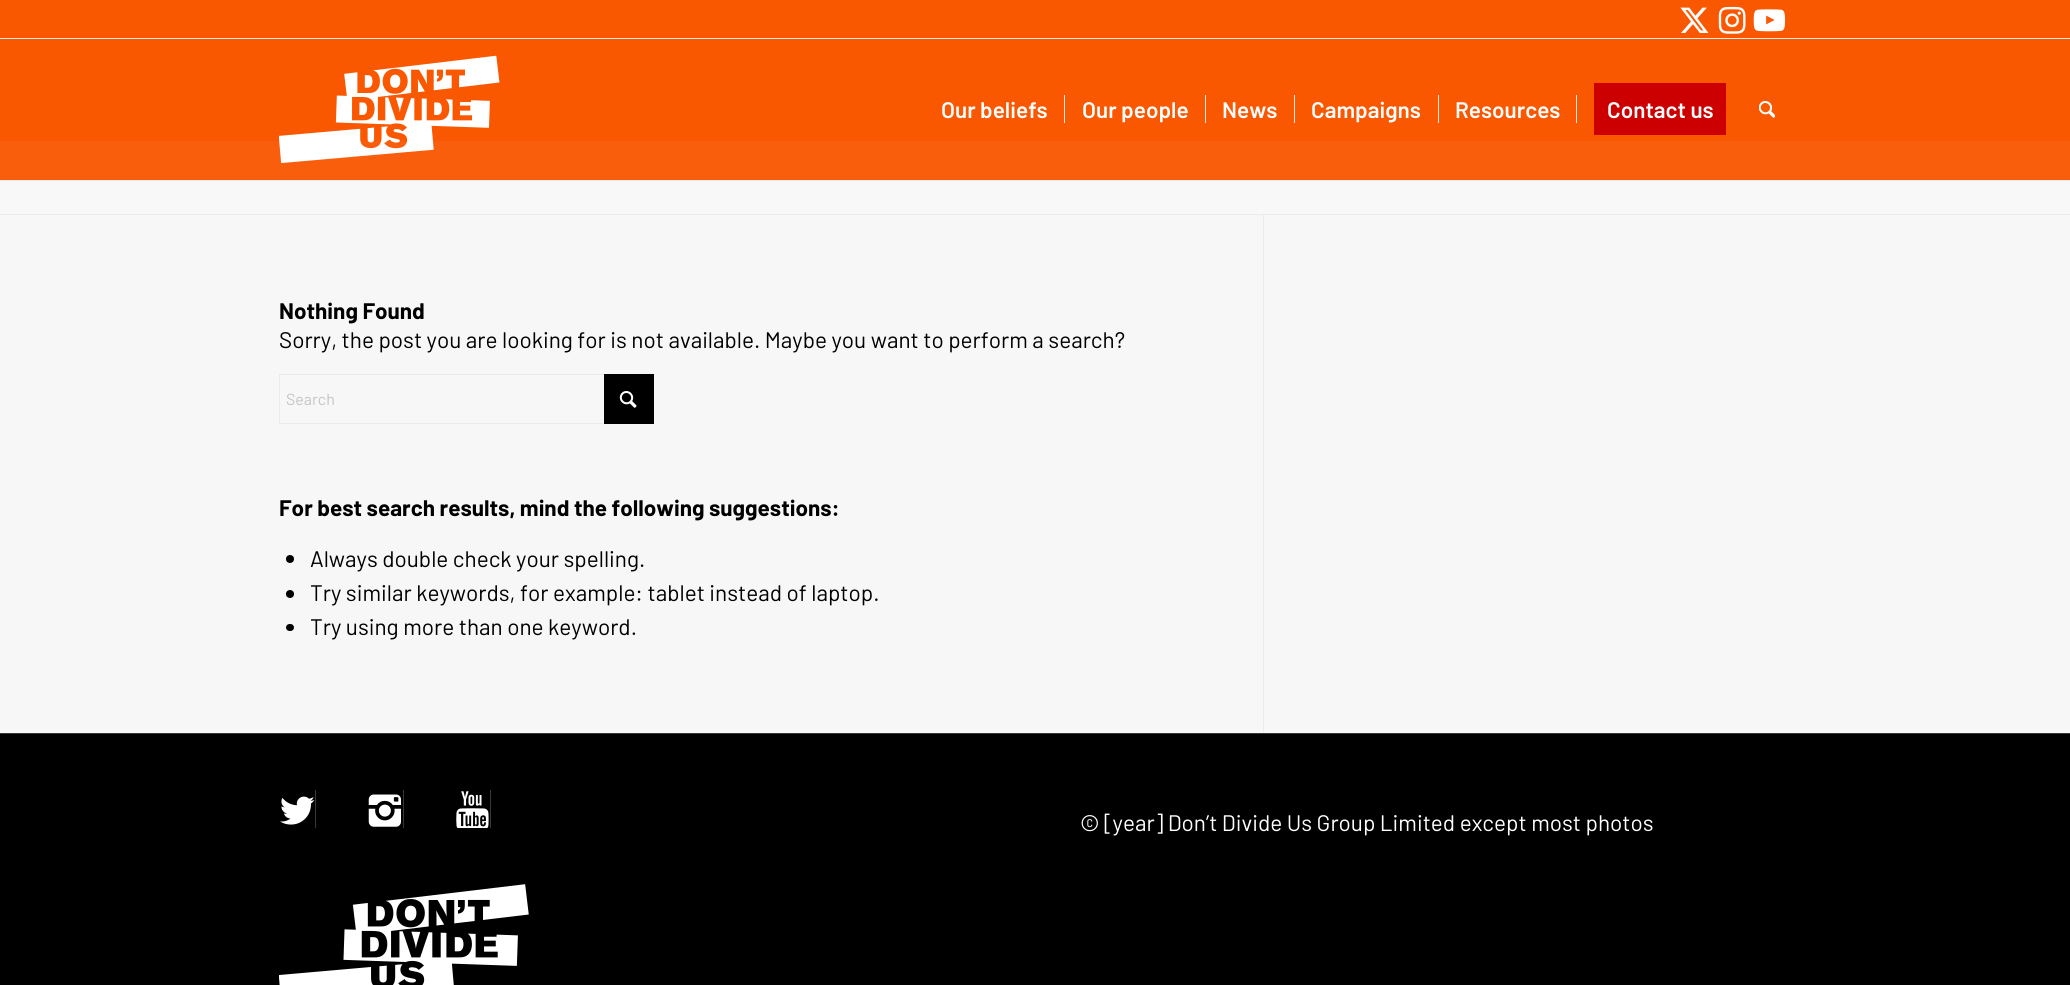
#include <cairo/cairo.h>
#include <math.h>
#include <stddef.h>

typedef struct { double x, y; const char *s; } line_t;
typedef struct { double x, y, w, h; unsigned color; } box_t;
static cairo_t *cr;

static void rgb(unsigned color)
{
	cairo_set_source_rgb(cr, (color >> 16) / 255.0, (color >> 8 & 255) / 255.0, (color & 255) / 255.0);
}

static void rrect(double x, double y, double w, double h, double r)
{
	cairo_new_sub_path(cr);
	cairo_arc(cr, x + w - r, y + h - r, r, 0, M_PI / 2);
	cairo_arc(cr, x + r, y + h - r, r, M_PI / 2, M_PI);
	cairo_arc(cr, x + r, y + r, r, M_PI, 1.5 * M_PI);
	cairo_arc(cr, x + w - r, y + r, r, 1.5 * M_PI, 2 * M_PI);
	cairo_close_path(cr);
}

static void image(const char *path, double x, double y, double w, double h)
{
	cairo_surface_t *image = cairo_image_surface_create_from_png(path);
	cairo_save(cr);
	cairo_set_source_surface(cr, image, x, y);
	cairo_rectangle(cr, x, y, w, h);
	cairo_fill(cr);
	cairo_restore(cr);
	cairo_surface_destroy(image);
}

int main(void) {
	cairo_surface_t *surface = cairo_image_surface_create(CAIRO_FORMAT_RGB24, 2070, 985);
	cr = cairo_create(surface);
	cairo_font_options_t *options = cairo_font_options_create();
	cairo_font_options_set_hint_metrics(options, CAIRO_HINT_METRICS_OFF);
	cairo_font_options_set_hint_style(options, CAIRO_HINT_STYLE_NONE);
	cairo_set_font_options(cr, options);
	cairo_set_miter_limit(cr, 4);
	rgb(0xf95700);
	cairo_paint(cr);
	rgb(0xebebeb);
	cairo_rectangle(cr, 0, 38, 2070, 1);
	cairo_fill(cr);
	image("img/1.png", 1680, 7, 29, 26);
	image("img/2.png", 1718, 6, 28, 28);
	image("img/3.png", 1753, 9, 32, 23);
	rgb(0xf8f8f8);
	cairo_rectangle(cr, 0, 142, 2070, 72);
	cairo_fill(cr);
	rgb(0xebebeb);
	cairo_rectangle(cr, 0, 180, 2070, 1);
	cairo_fill(cr);
	cairo_rectangle(cr, 0, 141, 2070, 1);
	cairo_fill(cr);
	cairo_set_source_rgba(cr, 0.976, 0.341, 0, 0.95);
	cairo_rectangle(cr, 0, 141, 2070, 39);
	cairo_fill(cr);
	image("img/4.png", 279, 55, 221, 108);
	{
		static const box_t items[] = {
			{1064, 95, 1, 28, 0xebebeb},
			{1205, 95, 1, 28, 0xebebeb},
			{1294, 95, 1, 28, 0xebebeb},
			{1438, 95, 1, 28, 0xebebeb},
			{1576, 95, 1, 28, 0xebebeb},
			{1594, 83, 132, 52, 0xcc0000},
		};
		for (size_t i = 0; i < sizeof items / sizeof *items; i++) {
			rgb(items[i].color);
			cairo_rectangle(cr, items[i].x, items[i].y, items[i].w, items[i].h);
			cairo_fill(cr);
		}
	}
	image("img/5.png", 1759, 101, 16, 17);
	{
		static const box_t items[] = {
			{0, 215, 2070, 518, 0xf7f7f7},
			{0, 214, 2070, 1, 0xebebeb},
			{1263, 215, 1, 518, 0xebebeb},
		};
		for (size_t i = 0; i < sizeof items / sizeof *items; i++) {
			rgb(items[i].color);
			cairo_rectangle(cr, items[i].x, items[i].y, items[i].w, items[i].h);
			cairo_fill(cr);
		}
	}
	cairo_rectangle(cr, 279.5, 374.5, 374, 49);
	cairo_set_line_width(cr, 1);
	cairo_stroke(cr);
	rgb(0x000000);
	cairo_rectangle(cr, 604, 374, 50, 50);
	cairo_fill(cr);
	image("img/6.png", 619, 391, 18, 17);
	cairo_arc(cr, 290, 559, 4, 0, 2 * M_PI);
	cairo_fill(cr);
	cairo_arc(cr, 290, 594, 4, 0, 2 * M_PI);
	cairo_fill(cr);
	rrect(286, 624, 8, 7, 3.5);
	cairo_fill(cr);
	{
		static const box_t items[] = {
			{0, 734, 2070, 251, 0x000000},
			{0, 733, 2070, 1, 0x35383c},
			{315, 790, 1, 38, 0x35383c},
		};
		for (size_t i = 0; i < sizeof items / sizeof *items; i++) {
			rgb(items[i].color);
			cairo_rectangle(cr, items[i].x, items[i].y, items[i].w, items[i].h);
			cairo_fill(cr);
		}
	}
	image("img/7.png", 280, 796, 35, 29);
	cairo_rectangle(cr, 403, 790, 1, 38);
	cairo_fill(cr);
	image("img/8.png", 368, 794, 33, 33);
	cairo_rectangle(cr, 490, 790, 1, 38);
	cairo_fill(cr);
	image("img/9.png", 456, 791, 33, 37);
	image("img/10.png", 279, 884, 250, 101);
	cairo_select_font_face(cr, "Barlow SemiBold", CAIRO_FONT_SLANT_NORMAL, CAIRO_FONT_WEIGHT_NORMAL);
	cairo_set_font_size(cr, 22.5);
	rgb(0xffffff);
	{
		static const line_t items[] = {
			{941, 118, "Our beliefs"},
			{1082, 118, "Our people"},
			{1222, 118, "News"},
			{1311, 118, "Campaigns"},
			{1455, 118, "Resources"},
			{1607, 118, "Contact us"},
		};
		for (size_t i = 0; i < sizeof items / sizeof *items; i++) {
			cairo_move_to(cr, items[i].x, items[i].y);
			cairo_show_text(cr, items[i].s);
		}
	}
	cairo_select_font_face(cr, "Barlow", CAIRO_FONT_SLANT_NORMAL, CAIRO_FONT_WEIGHT_BOLD);
	rgb(0x000000);
	cairo_move_to(cr, 279, 319);
	cairo_show_text(cr, "Nothing Found");
	cairo_select_font_face(cr, "Barlow", CAIRO_FONT_SLANT_NORMAL, CAIRO_FONT_WEIGHT_NORMAL);
	cairo_move_to(cr, 279, 348);
	cairo_show_text(cr, "Sorry, the post you are looking for is not available. Maybe you want to perform a search?");
	cairo_set_font_size(cr, 16);
	rgb(0xc4c4c4);
	cairo_move_to(cr, 286, 405);
	cairo_show_text(cr, "Search");
	cairo_select_font_face(cr, "Barlow", CAIRO_FONT_SLANT_NORMAL, CAIRO_FONT_WEIGHT_BOLD);
	cairo_set_font_size(cr, 22.5);
	rgb(0x000000);
	cairo_move_to(cr, 279, 516);
	cairo_show_text(cr, "For best search results, mind the following suggestions:");
	cairo_select_font_face(cr, "Barlow", CAIRO_FONT_SLANT_NORMAL, CAIRO_FONT_WEIGHT_NORMAL);
	{
		static const line_t items[] = {
			{310, 567, "Always double check your spelling."},
			{310, 601, "Try similar keywords, for example: tablet instead of laptop."},
			{310, 635, "Try using more than one keyword."},
		};
		for (size_t i = 0; i < sizeof items / sizeof *items; i++) {
			cairo_move_to(cr, items[i].x, items[i].y);
			cairo_show_text(cr, items[i].s);
		}
	}
	rgb(0xffffff);
	cairo_move_to(cr, 1080, 831);
	cairo_show_text(cr, "© [year] Don’t Divide Us Group Limited except most photos");
	cairo_surface_write_to_png(surface, "page.png");
	cairo_font_options_destroy(options);
	cairo_destroy(cr);
	cairo_surface_destroy(surface);
	return 0;
}
